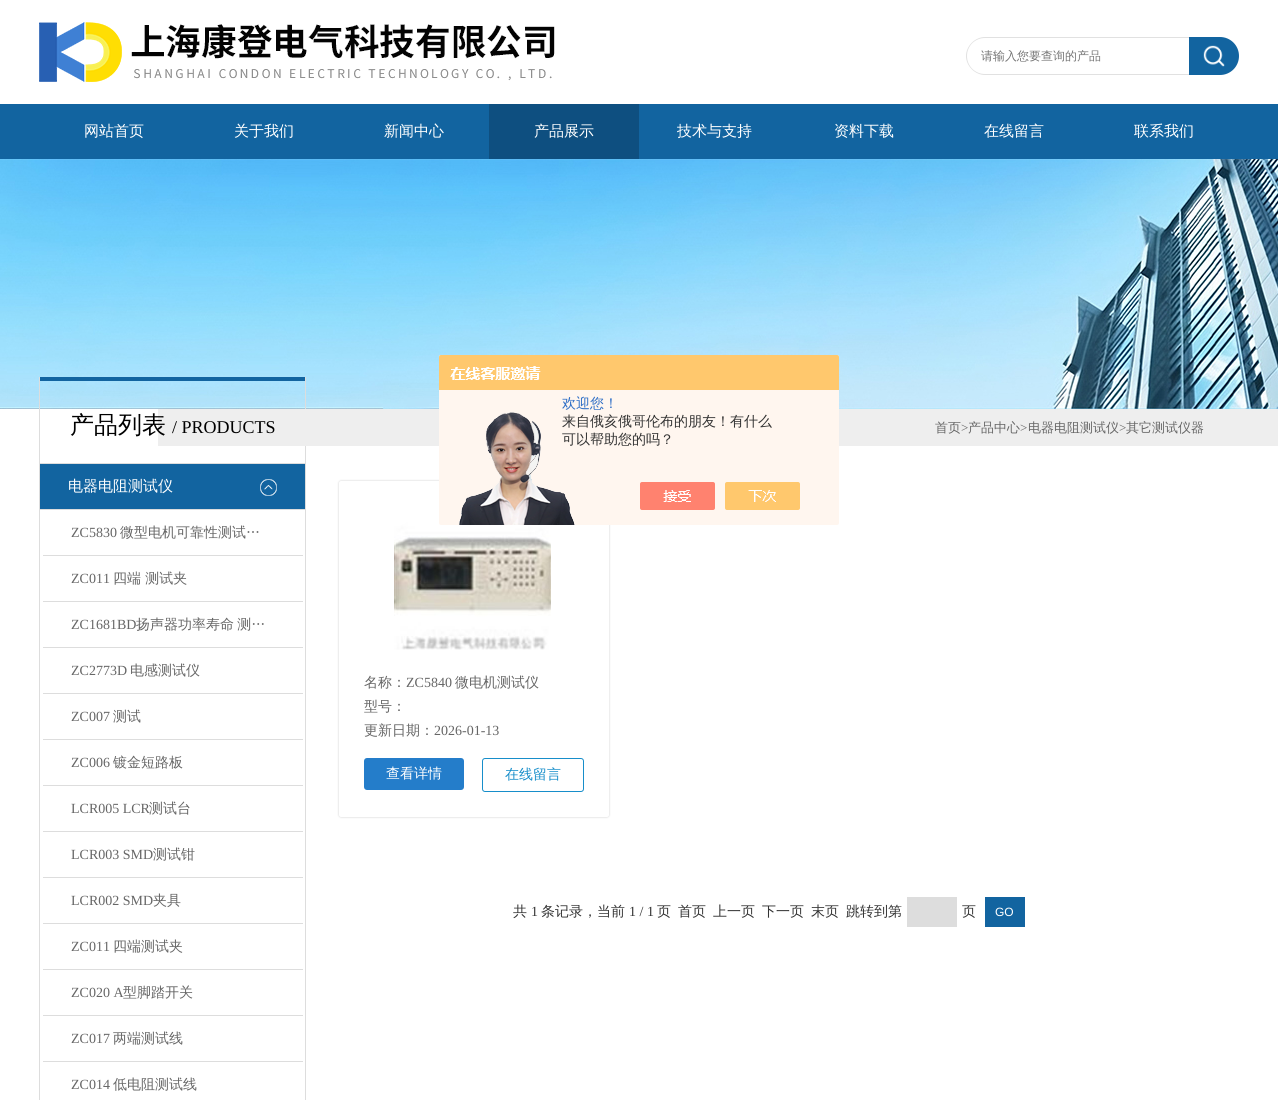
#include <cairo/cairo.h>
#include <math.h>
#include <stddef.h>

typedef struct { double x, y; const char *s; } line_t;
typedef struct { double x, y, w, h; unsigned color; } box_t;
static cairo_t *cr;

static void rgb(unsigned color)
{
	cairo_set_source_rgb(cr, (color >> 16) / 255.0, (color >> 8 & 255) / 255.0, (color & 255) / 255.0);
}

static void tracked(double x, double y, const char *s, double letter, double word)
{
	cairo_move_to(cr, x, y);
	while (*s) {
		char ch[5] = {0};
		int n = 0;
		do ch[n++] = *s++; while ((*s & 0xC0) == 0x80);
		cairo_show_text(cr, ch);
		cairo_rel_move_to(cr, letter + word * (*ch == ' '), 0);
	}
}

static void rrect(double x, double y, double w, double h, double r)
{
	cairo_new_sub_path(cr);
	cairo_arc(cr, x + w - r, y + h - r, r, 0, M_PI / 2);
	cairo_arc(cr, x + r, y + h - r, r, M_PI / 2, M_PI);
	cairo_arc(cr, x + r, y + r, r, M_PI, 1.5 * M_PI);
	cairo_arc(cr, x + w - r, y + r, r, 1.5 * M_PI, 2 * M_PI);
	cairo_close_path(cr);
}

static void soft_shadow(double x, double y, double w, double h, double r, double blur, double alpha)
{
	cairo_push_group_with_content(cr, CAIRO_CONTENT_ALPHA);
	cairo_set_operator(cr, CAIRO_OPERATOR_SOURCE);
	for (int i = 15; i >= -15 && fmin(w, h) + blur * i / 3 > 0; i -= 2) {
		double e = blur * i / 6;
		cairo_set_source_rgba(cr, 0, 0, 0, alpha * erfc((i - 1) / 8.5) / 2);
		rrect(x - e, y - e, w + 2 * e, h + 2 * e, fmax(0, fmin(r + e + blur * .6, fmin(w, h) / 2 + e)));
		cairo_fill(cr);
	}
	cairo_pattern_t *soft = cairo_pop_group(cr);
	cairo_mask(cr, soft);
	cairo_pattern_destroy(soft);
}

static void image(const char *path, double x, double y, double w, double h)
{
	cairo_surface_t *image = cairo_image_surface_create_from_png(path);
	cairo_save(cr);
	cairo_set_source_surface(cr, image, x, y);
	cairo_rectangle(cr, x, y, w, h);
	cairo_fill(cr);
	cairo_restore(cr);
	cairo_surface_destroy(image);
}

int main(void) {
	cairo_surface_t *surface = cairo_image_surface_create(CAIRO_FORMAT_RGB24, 1278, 1100);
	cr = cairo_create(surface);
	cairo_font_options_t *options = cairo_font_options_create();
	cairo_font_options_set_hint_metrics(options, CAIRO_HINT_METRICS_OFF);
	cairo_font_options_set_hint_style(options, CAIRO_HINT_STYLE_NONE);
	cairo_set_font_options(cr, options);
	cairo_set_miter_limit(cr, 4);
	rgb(0xffffff);
	cairo_paint(cr);
	rgb(0xeeeeee);
	cairo_rectangle(cr, 158, 409, 1120, 37);
	cairo_fill(cr);
	image("img/1.png", 39, 22, 516, 60);
	rgb(0xe1e1e1);
	cairo_set_fill_rule(cr, CAIRO_FILL_RULE_EVEN_ODD);
	cairo_new_path(cr);
	cairo_move_to(cr, 985, 37);
	cairo_line_to(cr, 1189, 37);
	cairo_line_to(cr, 1189, 75);
	cairo_line_to(cr, 985, 75);
	cairo_curve_to(cr, 975, 75, 966, 66, 966, 56);
	cairo_curve_to(cr, 966, 46, 975, 37, 985, 37);
	cairo_close_path(cr);
	cairo_move_to(cr, 985, 38);
	cairo_line_to(cr, 1189, 38);
	cairo_line_to(cr, 1189, 74);
	cairo_line_to(cr, 985, 74);
	cairo_curve_to(cr, 975, 74, 967, 66, 967, 56);
	cairo_curve_to(cr, 967, 46, 975, 38, 985, 38);
	cairo_close_path(cr);
	cairo_fill(cr);
	rgb(0x1264a0);
	cairo_new_path(cr);
	cairo_move_to(cr, 1189, 37);
	cairo_line_to(cr, 1220, 37);
	cairo_curve_to(cr, 1230.5, 37, 1239, 45.5, 1239, 56);
	cairo_curve_to(cr, 1239, 66.5, 1230.5, 75, 1220, 75);
	cairo_line_to(cr, 1189, 75);
	cairo_close_path(cr);
	cairo_fill(cr);
	image("img/2.png", 1203, 45, 22, 22);
	cairo_rectangle(cr, 0, 104, 1278, 55);
	cairo_fill(cr);
	rgb(0x0e4f80);
	cairo_rectangle(cr, 489, 104, 150, 55);
	cairo_fill(cr);
	image("img/3.png", 0, 159, 1278, 250);
	rgb(0xcccccc);
	soft_shadow(339, 481, 270, 336, 2, 1, 1);
	rgb(0xffffff);
	rrect(339, 481, 270, 336, 2);
	cairo_fill(cr);
	image("img/6.png", 394, 495, 157, 155);
	image("img/4.png", 439, 355, 400, 170);
	{
		static const box_t items[] = {
			{305, 377, 1, 723, 0xdddddd},
			{39, 377, 1, 723, 0xdddddd},
			{40, 377, 265, 4, 0x1264a0},
			{40, 463, 265, 1, 0xdddddd},
			{40, 464, 265, 45, 0x1264a0},
		};
		for (size_t i = 0; i < sizeof items / sizeof *items; i++) {
			rgb(items[i].color);
			cairo_rectangle(cr, items[i].x, items[i].y, items[i].w, items[i].h);
			cairo_fill(cr);
		}
	}
	image("img/5.png", 260, 479, 17, 17);
	{
		static const box_t items[] = {
			{40, 509, 265, 1, 0xdddddd},
			{43, 555, 260, 1, 0xdddddd},
			{43, 601, 260, 1, 0xdddddd},
			{43, 647, 260, 1, 0xdddddd},
			{43, 693, 260, 1, 0xdddddd},
			{43, 739, 260, 1, 0xdddddd},
			{43, 785, 260, 1, 0xdddddd},
			{43, 831, 260, 1, 0xdddddd},
			{43, 877, 260, 1, 0xdddddd},
			{43, 923, 260, 1, 0xdddddd},
			{43, 969, 260, 1, 0xdddddd},
			{43, 1015, 260, 1, 0xdddddd},
			{43, 1061, 260, 1, 0xdddddd},
			{305, 409, 1, 37, 0xeeeeee},
		};
		for (size_t i = 0; i < sizeof items / sizeof *items; i++) {
			rgb(items[i].color);
			cairo_rectangle(cr, items[i].x, items[i].y, items[i].w, items[i].h);
			cairo_fill(cr);
		}
	}
	rgb(0x247dca);
	rrect(364, 758, 100, 32, 3);
	cairo_fill(cr);
	rrect(482.5, 758.5, 101, 33, 2.5);
	rgb(0x178eca);
	cairo_set_line_width(cr, 1);
	cairo_stroke(cr);
	rgb(0xdddddd);
	cairo_rectangle(cr, 907, 897, 50, 30);
	cairo_fill(cr);
	rgb(0x1264a0);
	cairo_rectangle(cr, 985, 897, 40, 30);
	cairo_fill(cr);
	cairo_select_font_face(cr, "WenQuanYi Zen Hei Medium", CAIRO_FONT_SLANT_NORMAL, CAIRO_FONT_WEIGHT_NORMAL);
	cairo_set_font_size(cr, 12);
	rgb(0x757575);
	cairo_move_to(cr, 981, 60);
	cairo_show_text(cr, "请输入您要查询的产品");
	cairo_set_font_size(cr, 15);
	rgb(0xffffff);
	{
		static const line_t items[] = {
			{84, 136, "网站首页"},
			{234, 136, "关于我们"},
			{384, 136, "新闻中心"},
			{534, 136, "产品展示"},
			{677, 136, "技术与支持"},
			{834, 136, "资料下载"},
			{984, 136, "在线留言"},
			{1134, 136, "联系我们"},
		};
		for (size_t i = 0; i < sizeof items / sizeof *items; i++) {
			cairo_move_to(cr, items[i].x, items[i].y);
			cairo_show_text(cr, items[i].s);
		}
	}
	cairo_set_font_size(cr, 14);
	rgb(0x2e6ec6);
	cairo_move_to(cr, 562, 408);
	cairo_show_text(cr, "欢迎您！");
	rgb(0x333333);
	cairo_move_to(cr, 562, 426);
	cairo_show_text(cr, "来自俄亥俄哥伦布的朋友！有什么");
	cairo_move_to(cr, 562, 444);
	cairo_show_text(cr, "可以帮助您的吗？");
	cairo_set_font_size(cr, 24);
	rgb(0x000000);
	cairo_move_to(cr, 70, 433);
	cairo_show_text(cr, "产品列表");
	cairo_select_font_face(cr, "Liberation Serif", CAIRO_FONT_SLANT_NORMAL, CAIRO_FONT_WEIGHT_NORMAL);
	cairo_set_font_size(cr, 18);
	cairo_move_to(cr, 172, 433);
	cairo_show_text(cr, "/ PRODUCTS");
	cairo_select_font_face(cr, "WenQuanYi Zen Hei Medium", CAIRO_FONT_SLANT_NORMAL, CAIRO_FONT_WEIGHT_NORMAL);
	cairo_set_font_size(cr, 15);
	rgb(0xffffff);
	cairo_move_to(cr, 68, 491);
	cairo_show_text(cr, "电器电阻测试仪");
	cairo_select_font_face(cr, "Liberation Serif", CAIRO_FONT_SLANT_NORMAL, CAIRO_FONT_WEIGHT_NORMAL);
	cairo_set_font_size(cr, 14);
	rgb(0x666666);
	cairo_move_to(cr, 71, 537);
	cairo_show_text(cr, "ZC5830");
	cairo_select_font_face(cr, "WenQuanYi Zen Hei Medium", CAIRO_FONT_SLANT_NORMAL, CAIRO_FONT_WEIGHT_NORMAL);
	cairo_move_to(cr, 120, 537);
	cairo_show_text(cr, "微型电机可靠性测试…");
	cairo_select_font_face(cr, "Liberation Serif", CAIRO_FONT_SLANT_NORMAL, CAIRO_FONT_WEIGHT_NORMAL);
	cairo_move_to(cr, 71, 583);
	cairo_show_text(cr, "ZC011");
	cairo_select_font_face(cr, "WenQuanYi Zen Hei Medium", CAIRO_FONT_SLANT_NORMAL, CAIRO_FONT_WEIGHT_NORMAL);
	cairo_move_to(cr, 113, 583);
	cairo_show_text(cr, "四端 测试夹");
	cairo_select_font_face(cr, "Liberation Serif", CAIRO_FONT_SLANT_NORMAL, CAIRO_FONT_WEIGHT_NORMAL);
	cairo_move_to(cr, 71, 629);
	cairo_show_text(cr, "ZC1681BD");
	cairo_select_font_face(cr, "WenQuanYi Zen Hei Medium", CAIRO_FONT_SLANT_NORMAL, CAIRO_FONT_WEIGHT_NORMAL);
	tracked(136, 629, "扬声器功率寿命 测…", 0, -1);
	cairo_select_font_face(cr, "Liberation Serif", CAIRO_FONT_SLANT_NORMAL, CAIRO_FONT_WEIGHT_NORMAL);
	cairo_move_to(cr, 71, 675);
	cairo_show_text(cr, "ZC2773D");
	cairo_select_font_face(cr, "WenQuanYi Zen Hei Medium", CAIRO_FONT_SLANT_NORMAL, CAIRO_FONT_WEIGHT_NORMAL);
	cairo_move_to(cr, 130, 675);
	cairo_show_text(cr, "电感测试仪");
	cairo_select_font_face(cr, "Liberation Serif", CAIRO_FONT_SLANT_NORMAL, CAIRO_FONT_WEIGHT_NORMAL);
	cairo_move_to(cr, 71, 721);
	cairo_show_text(cr, "ZC007");
	cairo_select_font_face(cr, "WenQuanYi Zen Hei Medium", CAIRO_FONT_SLANT_NORMAL, CAIRO_FONT_WEIGHT_NORMAL);
	cairo_move_to(cr, 113, 721);
	cairo_show_text(cr, "测试");
	cairo_select_font_face(cr, "Liberation Serif", CAIRO_FONT_SLANT_NORMAL, CAIRO_FONT_WEIGHT_NORMAL);
	cairo_move_to(cr, 71, 767);
	cairo_show_text(cr, "ZC006");
	cairo_select_font_face(cr, "WenQuanYi Zen Hei Medium", CAIRO_FONT_SLANT_NORMAL, CAIRO_FONT_WEIGHT_NORMAL);
	cairo_move_to(cr, 113, 767);
	cairo_show_text(cr, "镀金短路板");
	cairo_select_font_face(cr, "Liberation Serif", CAIRO_FONT_SLANT_NORMAL, CAIRO_FONT_WEIGHT_NORMAL);
	cairo_move_to(cr, 71, 813);
	cairo_show_text(cr, "LCR005 LCR");
	cairo_select_font_face(cr, "WenQuanYi Zen Hei Medium", CAIRO_FONT_SLANT_NORMAL, CAIRO_FONT_WEIGHT_NORMAL);
	cairo_move_to(cr, 149, 813);
	cairo_show_text(cr, "测试台");
	cairo_select_font_face(cr, "Liberation Serif", CAIRO_FONT_SLANT_NORMAL, CAIRO_FONT_WEIGHT_NORMAL);
	cairo_move_to(cr, 71, 859);
	cairo_show_text(cr, "LCR003 SMD");
	cairo_select_font_face(cr, "WenQuanYi Zen Hei Medium", CAIRO_FONT_SLANT_NORMAL, CAIRO_FONT_WEIGHT_NORMAL);
	cairo_move_to(cr, 153, 859);
	cairo_show_text(cr, "测试钳");
	cairo_select_font_face(cr, "Liberation Serif", CAIRO_FONT_SLANT_NORMAL, CAIRO_FONT_WEIGHT_NORMAL);
	cairo_move_to(cr, 71, 905);
	cairo_show_text(cr, "LCR002 SMD");
	cairo_select_font_face(cr, "WenQuanYi Zen Hei Medium", CAIRO_FONT_SLANT_NORMAL, CAIRO_FONT_WEIGHT_NORMAL);
	cairo_move_to(cr, 153, 905);
	cairo_show_text(cr, "夹具");
	cairo_select_font_face(cr, "Liberation Serif", CAIRO_FONT_SLANT_NORMAL, CAIRO_FONT_WEIGHT_NORMAL);
	cairo_move_to(cr, 71, 951);
	cairo_show_text(cr, "ZC011");
	cairo_select_font_face(cr, "WenQuanYi Zen Hei Medium", CAIRO_FONT_SLANT_NORMAL, CAIRO_FONT_WEIGHT_NORMAL);
	cairo_move_to(cr, 113, 951);
	cairo_show_text(cr, "四端测试夹");
	cairo_select_font_face(cr, "Liberation Serif", CAIRO_FONT_SLANT_NORMAL, CAIRO_FONT_WEIGHT_NORMAL);
	cairo_move_to(cr, 71, 997);
	cairo_show_text(cr, "ZC020 A");
	cairo_select_font_face(cr, "WenQuanYi Zen Hei Medium", CAIRO_FONT_SLANT_NORMAL, CAIRO_FONT_WEIGHT_NORMAL);
	cairo_move_to(cr, 123, 997);
	cairo_show_text(cr, "型脚踏开关");
	cairo_select_font_face(cr, "Liberation Serif", CAIRO_FONT_SLANT_NORMAL, CAIRO_FONT_WEIGHT_NORMAL);
	cairo_move_to(cr, 71, 1043);
	cairo_show_text(cr, "ZC017");
	cairo_select_font_face(cr, "WenQuanYi Zen Hei Medium", CAIRO_FONT_SLANT_NORMAL, CAIRO_FONT_WEIGHT_NORMAL);
	cairo_move_to(cr, 113, 1043);
	cairo_show_text(cr, "两端测试线");
	cairo_select_font_face(cr, "Liberation Serif", CAIRO_FONT_SLANT_NORMAL, CAIRO_FONT_WEIGHT_NORMAL);
	cairo_move_to(cr, 71, 1089);
	cairo_show_text(cr, "ZC014");
	cairo_select_font_face(cr, "WenQuanYi Zen Hei Medium", CAIRO_FONT_SLANT_NORMAL, CAIRO_FONT_WEIGHT_NORMAL);
	cairo_move_to(cr, 113, 1089);
	cairo_show_text(cr, "低电阻测试线");
	cairo_set_font_size(cr, 13);
	cairo_move_to(cr, 935, 432);
	cairo_show_text(cr, "首页");
	cairo_select_font_face(cr, "Liberation Serif", CAIRO_FONT_SLANT_NORMAL, CAIRO_FONT_WEIGHT_NORMAL);
	cairo_move_to(cr, 961, 432);
	cairo_show_text(cr, ">");
	cairo_select_font_face(cr, "WenQuanYi Zen Hei Medium", CAIRO_FONT_SLANT_NORMAL, CAIRO_FONT_WEIGHT_NORMAL);
	cairo_move_to(cr, 968, 432);
	cairo_show_text(cr, "产品中心");
	cairo_select_font_face(cr, "Liberation Serif", CAIRO_FONT_SLANT_NORMAL, CAIRO_FONT_WEIGHT_NORMAL);
	cairo_move_to(cr, 1020, 432);
	cairo_show_text(cr, ">");
	cairo_select_font_face(cr, "WenQuanYi Zen Hei Medium", CAIRO_FONT_SLANT_NORMAL, CAIRO_FONT_WEIGHT_NORMAL);
	cairo_move_to(cr, 1028, 432);
	cairo_show_text(cr, "电器电阻测试仪");
	cairo_select_font_face(cr, "Liberation Serif", CAIRO_FONT_SLANT_NORMAL, CAIRO_FONT_WEIGHT_NORMAL);
	cairo_move_to(cr, 1119, 432);
	cairo_show_text(cr, ">");
	cairo_select_font_face(cr, "WenQuanYi Zen Hei Medium", CAIRO_FONT_SLANT_NORMAL, CAIRO_FONT_WEIGHT_NORMAL);
	cairo_move_to(cr, 1126, 432);
	cairo_show_text(cr, "其它测试仪器");
	cairo_set_font_size(cr, 14);
	cairo_move_to(cr, 364, 687);
	cairo_show_text(cr, "名称：");
	cairo_select_font_face(cr, "Liberation Serif", CAIRO_FONT_SLANT_NORMAL, CAIRO_FONT_WEIGHT_NORMAL);
	cairo_move_to(cr, 406, 687);
	cairo_show_text(cr, "ZC5840");
	cairo_select_font_face(cr, "WenQuanYi Zen Hei Medium", CAIRO_FONT_SLANT_NORMAL, CAIRO_FONT_WEIGHT_NORMAL);
	{
		static const line_t items[] = {
			{455, 687, "微电机测试仪"},
			{364, 711, "型号："},
			{364, 735, "更新日期："},
		};
		for (size_t i = 0; i < sizeof items / sizeof *items; i++) {
			cairo_move_to(cr, items[i].x, items[i].y);
			cairo_show_text(cr, items[i].s);
		}
	}
	cairo_select_font_face(cr, "Liberation Serif", CAIRO_FONT_SLANT_NORMAL, CAIRO_FONT_WEIGHT_NORMAL);
	cairo_move_to(cr, 434, 735);
	cairo_show_text(cr, "2026-01-13");
	cairo_select_font_face(cr, "WenQuanYi Zen Hei Medium", CAIRO_FONT_SLANT_NORMAL, CAIRO_FONT_WEIGHT_NORMAL);
	rgb(0xffffff);
	cairo_move_to(cr, 386, 778);
	cairo_show_text(cr, "查看详情");
	rgb(0x178eca);
	cairo_move_to(cr, 505, 779);
	cairo_show_text(cr, "在线留言");
	rgb(0x333333);
	cairo_move_to(cr, 513, 916);
	cairo_show_text(cr, "共");
	cairo_select_font_face(cr, "Liberation Serif", CAIRO_FONT_SLANT_NORMAL, CAIRO_FONT_WEIGHT_NORMAL);
	cairo_move_to(cr, 531, 916);
	cairo_show_text(cr, "1");
	cairo_select_font_face(cr, "WenQuanYi Zen Hei Medium", CAIRO_FONT_SLANT_NORMAL, CAIRO_FONT_WEIGHT_NORMAL);
	cairo_move_to(cr, 541, 916);
	cairo_show_text(cr, "条记录，当前");
	cairo_select_font_face(cr, "Liberation Serif", CAIRO_FONT_SLANT_NORMAL, CAIRO_FONT_WEIGHT_NORMAL);
	cairo_move_to(cr, 629, 916);
	cairo_show_text(cr, "1 / 1");
	cairo_select_font_face(cr, "WenQuanYi Zen Hei Medium", CAIRO_FONT_SLANT_NORMAL, CAIRO_FONT_WEIGHT_NORMAL);
	{
		static const line_t items[] = {
			{657, 916, "页"},
			{678, 916, "首页"},
			{713, 916, "上一页"},
			{762, 916, "下一页"},
			{811, 916, "末页"},
			{846, 916, "跳转到第"},
			{962, 916, "页"},
		};
		for (size_t i = 0; i < sizeof items / sizeof *items; i++) {
			cairo_move_to(cr, items[i].x, items[i].y);
			cairo_show_text(cr, items[i].s);
		}
	}
	cairo_select_font_face(cr, "Liberation Sans", CAIRO_FONT_SLANT_NORMAL, CAIRO_FONT_WEIGHT_NORMAL);
	cairo_set_font_size(cr, 12);
	rgb(0xffffff);
	cairo_move_to(cr, 995, 916);
	cairo_show_text(cr, "GO");
	cairo_surface_write_to_png(surface, "page.png");
	cairo_font_options_destroy(options);
	cairo_destroy(cr);
	cairo_surface_destroy(surface);
	return 0;
}
